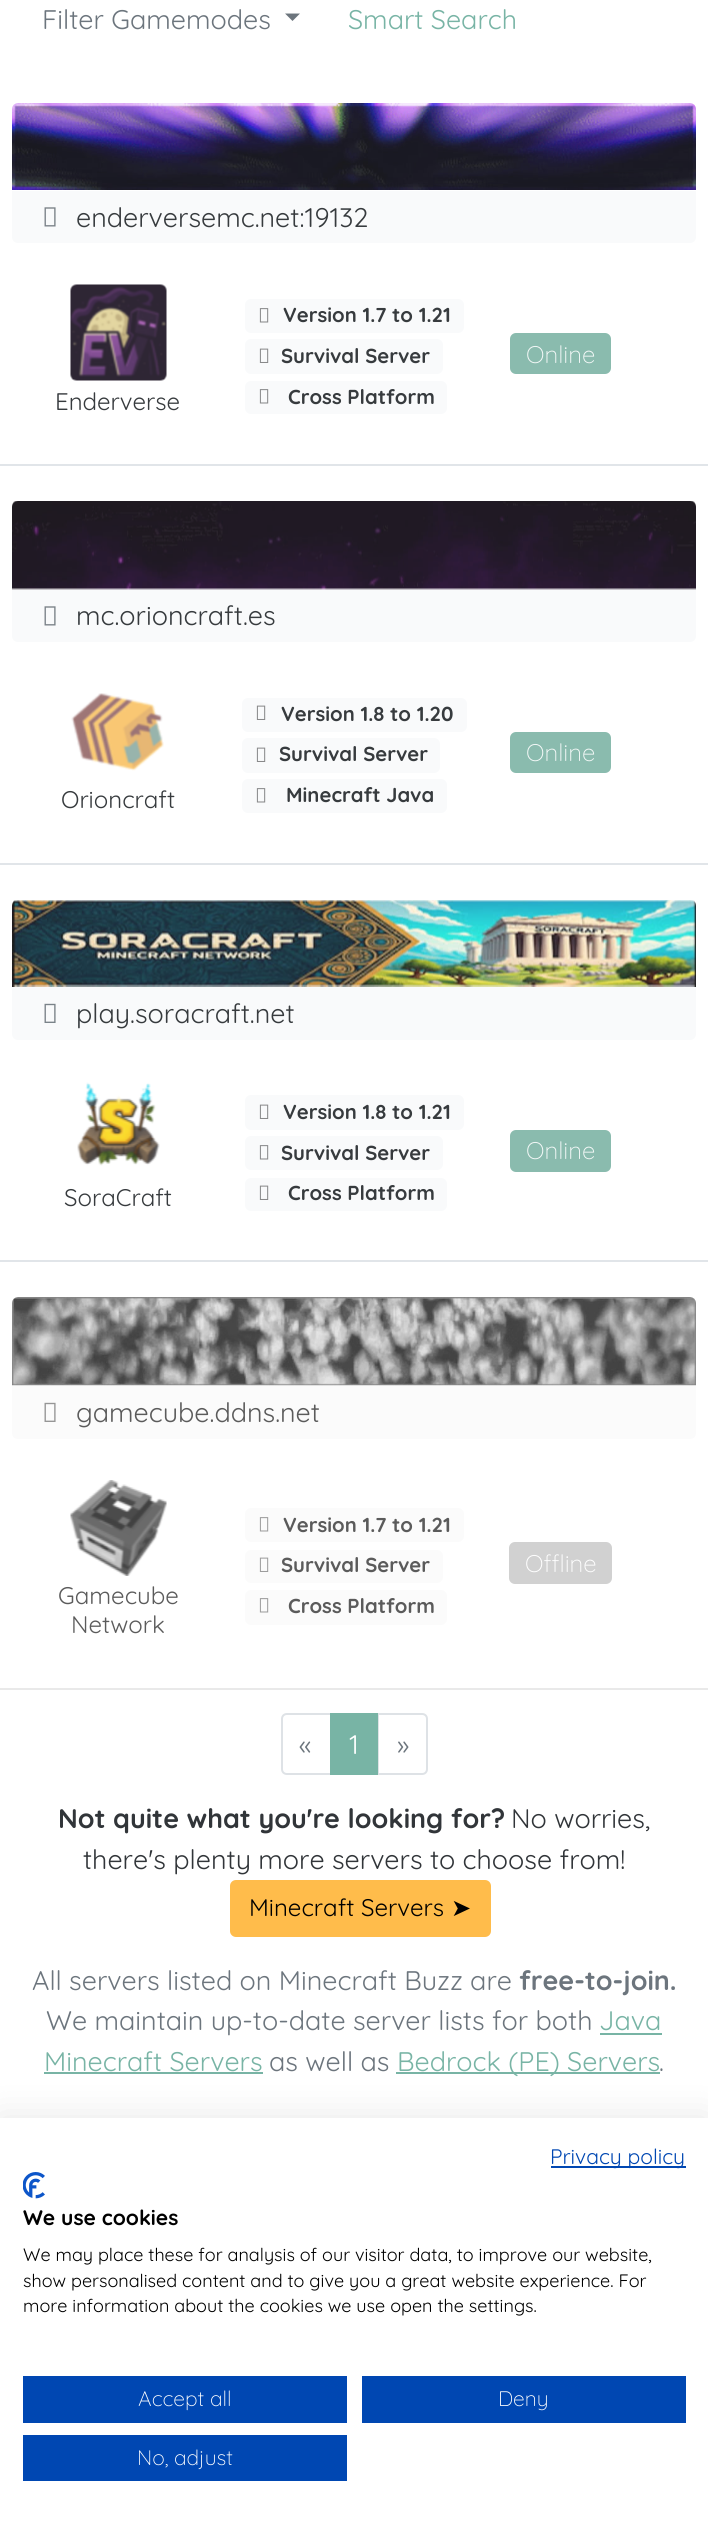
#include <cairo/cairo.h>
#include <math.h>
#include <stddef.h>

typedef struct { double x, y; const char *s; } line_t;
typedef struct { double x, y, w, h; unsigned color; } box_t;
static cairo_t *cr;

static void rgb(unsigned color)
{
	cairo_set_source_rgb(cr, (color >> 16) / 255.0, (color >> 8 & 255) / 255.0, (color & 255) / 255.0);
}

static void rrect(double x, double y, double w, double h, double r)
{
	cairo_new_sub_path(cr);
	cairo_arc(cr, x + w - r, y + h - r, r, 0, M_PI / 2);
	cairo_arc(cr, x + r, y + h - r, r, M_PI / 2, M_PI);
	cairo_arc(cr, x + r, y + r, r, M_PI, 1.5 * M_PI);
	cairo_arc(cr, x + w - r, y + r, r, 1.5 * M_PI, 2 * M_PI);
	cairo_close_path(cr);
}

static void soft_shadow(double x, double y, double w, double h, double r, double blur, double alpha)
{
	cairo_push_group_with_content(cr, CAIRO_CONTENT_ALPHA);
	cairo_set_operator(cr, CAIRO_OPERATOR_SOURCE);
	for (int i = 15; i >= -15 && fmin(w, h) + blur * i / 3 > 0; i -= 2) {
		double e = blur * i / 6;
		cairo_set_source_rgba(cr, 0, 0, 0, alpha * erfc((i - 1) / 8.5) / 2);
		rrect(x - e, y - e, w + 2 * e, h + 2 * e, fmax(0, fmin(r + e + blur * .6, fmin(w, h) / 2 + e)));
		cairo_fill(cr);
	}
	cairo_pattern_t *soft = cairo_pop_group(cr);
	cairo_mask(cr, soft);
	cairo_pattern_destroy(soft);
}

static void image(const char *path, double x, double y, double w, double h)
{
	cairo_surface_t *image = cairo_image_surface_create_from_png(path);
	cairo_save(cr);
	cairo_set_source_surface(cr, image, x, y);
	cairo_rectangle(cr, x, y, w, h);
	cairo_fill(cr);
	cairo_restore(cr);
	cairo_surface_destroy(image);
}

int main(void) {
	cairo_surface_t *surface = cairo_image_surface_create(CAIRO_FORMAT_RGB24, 708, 2521);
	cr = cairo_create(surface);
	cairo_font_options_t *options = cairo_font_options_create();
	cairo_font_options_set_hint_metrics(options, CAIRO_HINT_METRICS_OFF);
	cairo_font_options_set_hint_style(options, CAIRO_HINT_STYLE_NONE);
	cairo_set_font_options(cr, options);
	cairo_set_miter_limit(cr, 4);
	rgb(0xffffff);
	cairo_paint(cr);
	rgb(0x6c757d);
	cairo_new_path(cr);
	cairo_move_to(cr, 285, 13.5);
	cairo_line_to(cr, 300, 13.5);
	cairo_line_to(cr, 292.5, 21);
	cairo_close_path(cr);
	cairo_fill(cr);
	rgb(0xe1e5e9);
	cairo_rectangle(cr, 0, 464, 708, 2);
	cairo_fill(cr);
	image("img/1.png", 12, 103, 684, 87);
	rgb(0xf9fafb);
	cairo_new_path(cr);
	cairo_move_to(cr, 12, 191);
	cairo_line_to(cr, 696, 191);
	cairo_line_to(cr, 696, 237);
	cairo_curve_to(cr, 696, 240.5, 693.5, 243, 690, 243);
	cairo_line_to(cr, 18, 243);
	cairo_curve_to(cr, 14.5, 243, 12, 240.5, 12, 237);
	cairo_close_path(cr);
	cairo_fill(cr);
	image("img/2.png", 44, 207, 12, 20);
	rrect(245, 299, 219, 34, 6);
	cairo_fill(cr);
	image("img/3.png", 259, 308, 10, 15);
	rrect(245, 339, 198, 35, 6);
	cairo_fill(cr);
	image("img/4.png", 259, 348, 10, 15);
	rrect(245, 381, 202, 33, 6);
	cairo_fill(cr);
	image("img/3.png", 259, 389, 10, 15);
	rgb(0x8abbae);
	rrect(510, 333, 101, 41, 6);
	cairo_fill(cr);
	image("img/5.png", 70, 284, 97, 97);
	rgb(0xe1e5e9);
	cairo_rectangle(cr, 0, 863, 708, 2);
	cairo_fill(cr);
	image("img/6.png", 12, 501, 684, 89);
	rgb(0xf9fafb);
	cairo_new_path(cr);
	cairo_move_to(cr, 12, 590);
	cairo_line_to(cr, 696, 590);
	cairo_line_to(cr, 696, 636);
	cairo_curve_to(cr, 696, 639.5, 693.5, 642, 690, 642);
	cairo_line_to(cr, 18, 642);
	cairo_curve_to(cr, 14.5, 642, 12, 639.5, 12, 636);
	cairo_close_path(cr);
	cairo_fill(cr);
	image("img/2.png", 44, 606, 12, 20);
	rrect(242, 698, 225, 34, 6);
	cairo_fill(cr);
	image("img/4.png", 256, 705, 10, 15);
	rrect(242, 738, 198, 35, 6);
	cairo_fill(cr);
	image("img/4.png", 256, 747, 10, 15);
	rrect(242, 779, 205, 34, 6);
	cairo_fill(cr);
	image("img/3.png", 256, 788, 10, 15);
	rgb(0x8abbae);
	rrect(510, 732, 101, 41, 6);
	cairo_fill(cr);
	image("img/7.png", 71, 693, 93, 78);
	rgb(0xe1e5e9);
	cairo_rectangle(cr, 0, 1260, 708, 2);
	cairo_fill(cr);
	image("img/8.png", 12, 900, 684, 87);
	rgb(0xf9fafb);
	cairo_new_path(cr);
	cairo_move_to(cr, 12, 987);
	cairo_line_to(cr, 696, 987);
	cairo_line_to(cr, 696, 1034);
	cairo_curve_to(cr, 696, 1037.5, 693.5, 1040, 690, 1040);
	cairo_line_to(cr, 18, 1040);
	cairo_curve_to(cr, 14.5, 1040, 12, 1037.5, 12, 1034);
	cairo_close_path(cr);
	cairo_fill(cr);
	image("img/9.png", 44, 1003, 12, 20);
	rrect(245, 1095, 219, 35, 6);
	cairo_fill(cr);
	image("img/4.png", 259, 1104, 10, 15);
	rrect(245, 1136, 198, 34, 6);
	cairo_fill(cr);
	image("img/3.png", 259, 1145, 10, 15);
	rrect(245, 1178, 202, 33, 6);
	cairo_fill(cr);
	image("img/4.png", 259, 1185, 10, 15);
	rgb(0x8abbae);
	rrect(510, 1130, 101, 42, 6);
	cairo_fill(cr);
	image("img/10.png", 77, 1082, 83, 84);
	rgb(0xe9e9e9);
	cairo_rectangle(cr, 0, 1688, 708, 2);
	cairo_fill(cr);
	image("img/11.png", 12, 1297, 684, 89);
	rgb(0xfbfbfb);
	cairo_new_path(cr);
	cairo_move_to(cr, 12, 1386);
	cairo_line_to(cr, 696, 1386);
	cairo_line_to(cr, 696, 1433);
	cairo_curve_to(cr, 696, 1436.5, 693.5, 1439, 690, 1439);
	cairo_line_to(cr, 18, 1439);
	cairo_curve_to(cr, 14.5, 1439, 12, 1436.5, 12, 1433);
	cairo_close_path(cr);
	cairo_fill(cr);
	image("img/12.png", 44, 1402, 12, 20);
	rrect(245, 1508, 219, 34, 6);
	cairo_fill(cr);
	image("img/13.png", 259, 1517, 10, 15);
	rrect(245, 1550, 198, 33, 6);
	cairo_fill(cr);
	image("img/14.png", 259, 1557, 10, 15);
	rrect(245, 1590, 202, 35, 6);
	cairo_fill(cr);
	image("img/13.png", 259, 1598, 10, 15);
	rgb(0xd1d1d1);
	rrect(509, 1542, 103, 42, 6);
	cairo_fill(cr);
	image("img/15.png", 70, 1480, 97, 96);
	cairo_new_path(cr);
	cairo_move_to(cr, 287, 1714);
	cairo_line_to(cr, 331, 1714);
	cairo_line_to(cr, 331, 1774);
	cairo_line_to(cr, 287, 1774);
	cairo_curve_to(cr, 284, 1774, 282, 1772, 282, 1769);
	cairo_line_to(cr, 282, 1719);
	cairo_curve_to(cr, 282, 1716, 284, 1714, 287, 1714);
	cairo_close_path(cr);
	rgb(0xdee2e6);
	cairo_stroke(cr);
	cairo_new_path(cr);
	cairo_move_to(cr, 378, 1714);
	cairo_line_to(cr, 422, 1714);
	cairo_curve_to(cr, 425, 1714, 427, 1716, 427, 1719);
	cairo_line_to(cr, 427, 1769);
	cairo_curve_to(cr, 427, 1772, 425, 1774, 422, 1774);
	cairo_line_to(cr, 378, 1774);
	cairo_close_path(cr);
	cairo_stroke(cr);
	rgb(0x78b4a5);
	cairo_rectangle(cr, 330, 1713, 48, 62);
	cairo_fill(cr);
	rgb(0xffbc4b);
	rrect(231, 1881, 259, 55, 5);
	cairo_fill_preserve(cr);
	cairo_stroke(cr);
	{
		static const box_t items[] = {
			{600, 2033, 62, 2, 0x78b4a5},
			{44, 2072, 219, 2, 0x78b4a5},
			{396, 2072, 264, 2, 0x78b4a5},
		};
		for (size_t i = 0; i < sizeof items / sizeof *items; i++) {
			rgb(items[i].color);
			cairo_rectangle(cr, items[i].x, items[i].y, items[i].w, items[i].h);
			cairo_fill(cr);
		}
	}
	rgb(0x000000);
	soft_shadow(0, 2118, 708, 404, 0, 18, 0.1);
	rgb(0xffffff);
	cairo_rectangle(cr, 0, 2118, 708, 403);
	cairo_fill(cr);
	rgb(0x0047b2);
	cairo_rectangle(cr, 551, 2166, 135, 2);
	cairo_fill(cr);
	image("img/16.png", 23, 2172, 22, 27);
	{
		static const box_t items[] = {
			{23, 2376, 324, 47, 0x0047b2},
			{362, 2376, 324, 47, 0x0047b2},
			{23, 2435, 324, 46, 0x0047b2},
		};
		for (size_t i = 0; i < sizeof items / sizeof *items; i++) {
			rgb(items[i].color);
			cairo_rectangle(cr, items[i].x, items[i].y, items[i].w, items[i].h);
			cairo_fill(cr);
		}
	}
	cairo_select_font_face(cr, "Quicksand", CAIRO_FONT_SLANT_NORMAL, CAIRO_FONT_WEIGHT_NORMAL);
	cairo_set_font_size(cr, 26.9);
	rgb(0x6c757d);
	cairo_move_to(cr, 42, 29);
	cairo_show_text(cr, "Filter Gamemodes");
	rgb(0x78b4a5);
	cairo_move_to(cr, 348, 29);
	cairo_show_text(cr, "Smart Search");
	rgb(0x373b3e);
	cairo_move_to(cr, 76, 227);
	cairo_show_text(cr, "enderversemc.net:19132");
	cairo_select_font_face(cr, "Quicksand", CAIRO_FONT_SLANT_NORMAL, CAIRO_FONT_WEIGHT_BOLD);
	cairo_set_font_size(cr, 20.25);
	{
		static const line_t items[] = {
			{283, 322, "Version 1.7 to 1.21"},
			{281, 363, "Survival Server"},
			{288, 404, "Cross Platform"},
		};
		for (size_t i = 0; i < sizeof items / sizeof *items; i++) {
			cairo_move_to(cr, items[i].x, items[i].y);
			cairo_show_text(cr, items[i].s);
		}
	}
	cairo_select_font_face(cr, "Quicksand Light", CAIRO_FONT_SLANT_NORMAL, CAIRO_FONT_WEIGHT_NORMAL);
	cairo_set_font_size(cr, 24);
	rgb(0xf3f8f7);
	cairo_move_to(cr, 526, 363);
	cairo_show_text(cr, "Online");
	cairo_select_font_face(cr, "Quicksand", CAIRO_FONT_SLANT_NORMAL, CAIRO_FONT_WEIGHT_NORMAL);
	rgb(0x373b3e);
	cairo_move_to(cr, 55, 410);
	cairo_show_text(cr, "Enderverse");
	cairo_set_font_size(cr, 26.9);
	cairo_move_to(cr, 76, 625);
	cairo_show_text(cr, "mc.orioncraft.es");
	cairo_select_font_face(cr, "Quicksand", CAIRO_FONT_SLANT_NORMAL, CAIRO_FONT_WEIGHT_BOLD);
	cairo_set_font_size(cr, 20.25);
	{
		static const line_t items[] = {
			{281, 721, "Version 1.8 to 1.20"},
			{279, 761, "Survival Server"},
			{286, 802, "Minecraft Java"},
		};
		for (size_t i = 0; i < sizeof items / sizeof *items; i++) {
			cairo_move_to(cr, items[i].x, items[i].y);
			cairo_show_text(cr, items[i].s);
		}
	}
	cairo_select_font_face(cr, "Quicksand Light", CAIRO_FONT_SLANT_NORMAL, CAIRO_FONT_WEIGHT_NORMAL);
	cairo_set_font_size(cr, 24);
	rgb(0xf3f8f7);
	cairo_move_to(cr, 526, 761);
	cairo_show_text(cr, "Online");
	cairo_select_font_face(cr, "Quicksand", CAIRO_FONT_SLANT_NORMAL, CAIRO_FONT_WEIGHT_NORMAL);
	rgb(0x373b3e);
	cairo_move_to(cr, 61, 808);
	cairo_show_text(cr, "Orioncraft");
	cairo_set_font_size(cr, 26.9);
	cairo_move_to(cr, 76, 1023);
	cairo_show_text(cr, "play.soracraft.net");
	cairo_select_font_face(cr, "Quicksand", CAIRO_FONT_SLANT_NORMAL, CAIRO_FONT_WEIGHT_BOLD);
	cairo_set_font_size(cr, 20.25);
	{
		static const line_t items[] = {
			{283, 1119, "Version 1.8 to 1.21"},
			{281, 1160, "Survival Server"},
			{288, 1200, "Cross Platform"},
		};
		for (size_t i = 0; i < sizeof items / sizeof *items; i++) {
			cairo_move_to(cr, items[i].x, items[i].y);
			cairo_show_text(cr, items[i].s);
		}
	}
	cairo_select_font_face(cr, "Quicksand Light", CAIRO_FONT_SLANT_NORMAL, CAIRO_FONT_WEIGHT_NORMAL);
	cairo_set_font_size(cr, 24);
	rgb(0xf3f8f7);
	cairo_move_to(cr, 526, 1159);
	cairo_show_text(cr, "Online");
	cairo_select_font_face(cr, "Quicksand", CAIRO_FONT_SLANT_NORMAL, CAIRO_FONT_WEIGHT_NORMAL);
	rgb(0x373b3e);
	cairo_move_to(cr, 64, 1206);
	cairo_show_text(cr, "SoraCraft");
	cairo_set_font_size(cr, 26.9);
	rgb(0x5b5b5b);
	cairo_move_to(cr, 76, 1422);
	cairo_show_text(cr, "gamecube.ddns.net");
	cairo_select_font_face(cr, "Quicksand", CAIRO_FONT_SLANT_NORMAL, CAIRO_FONT_WEIGHT_BOLD);
	cairo_set_font_size(cr, 20.25);
	{
		static const line_t items[] = {
			{283, 1532, "Version 1.7 to 1.21"},
			{281, 1572, "Survival Server"},
			{288, 1613, "Cross Platform"},
		};
		for (size_t i = 0; i < sizeof items / sizeof *items; i++) {
			cairo_move_to(cr, items[i].x, items[i].y);
			cairo_show_text(cr, items[i].s);
		}
	}
	cairo_select_font_face(cr, "Quicksand Light", CAIRO_FONT_SLANT_NORMAL, CAIRO_FONT_WEIGHT_NORMAL);
	cairo_set_font_size(cr, 24);
	rgb(0xffffff);
	cairo_move_to(cr, 525, 1572);
	cairo_show_text(cr, "Offline");
	cairo_select_font_face(cr, "Quicksand", CAIRO_FONT_SLANT_NORMAL, CAIRO_FONT_WEIGHT_NORMAL);
	rgb(0x5b5b5b);
	cairo_move_to(cr, 58, 1604);
	cairo_show_text(cr, "Gamecube");
	cairo_move_to(cr, 71, 1633);
	cairo_show_text(cr, "Network");
	cairo_set_font_size(cr, 26.9);
	rgb(0x6c757d);
	cairo_move_to(cr, 299, 1754);
	cairo_show_text(cr, "«");
	rgb(0xffffff);
	cairo_move_to(cr, 349, 1754);
	cairo_show_text(cr, "1");
	rgb(0x6c757d);
	cairo_move_to(cr, 397, 1754);
	cairo_show_text(cr, "»");
	cairo_select_font_face(cr, "Quicksand", CAIRO_FONT_SLANT_NORMAL, CAIRO_FONT_WEIGHT_BOLD);
	rgb(0x313539);
	cairo_move_to(cr, 58, 1828);
	cairo_show_text(cr, "Not quite what you're looking for?");
	cairo_select_font_face(cr, "Quicksand", CAIRO_FONT_SLANT_NORMAL, CAIRO_FONT_WEIGHT_NORMAL);
	cairo_move_to(cr, 511, 1828);
	cairo_show_text(cr, "No worries,");
	cairo_move_to(cr, 83, 1869);
	cairo_show_text(cr, "there's plenty more servers to choose from!");
	cairo_set_font_size(cr, 24);
	rgb(0x000000);
	cairo_move_to(cr, 249, 1916);
	cairo_show_text(cr, "Minecraft Servers");
	cairo_select_font_face(cr, "DejaVu Sans", CAIRO_FONT_SLANT_NORMAL, CAIRO_FONT_WEIGHT_NORMAL);
	cairo_move_to(cr, 451, 1916);
	cairo_show_text(cr, "➤");
	cairo_select_font_face(cr, "Quicksand", CAIRO_FONT_SLANT_NORMAL, CAIRO_FONT_WEIGHT_NORMAL);
	cairo_set_font_size(cr, 26.9);
	rgb(0x6c757d);
	cairo_move_to(cr, 32, 1990);
	cairo_show_text(cr, "All servers listed on Minecraft Buzz are");
	cairo_select_font_face(cr, "Quicksand", CAIRO_FONT_SLANT_NORMAL, CAIRO_FONT_WEIGHT_BOLD);
	cairo_move_to(cr, 519, 1990);
	cairo_show_text(cr, "free-to-join.");
	cairo_select_font_face(cr, "Quicksand", CAIRO_FONT_SLANT_NORMAL, CAIRO_FONT_WEIGHT_NORMAL);
	cairo_move_to(cr, 46, 2030);
	cairo_show_text(cr, "We maintain up-to-date server lists for both");
	rgb(0x78b4a5);
	cairo_move_to(cr, 599, 2030);
	cairo_show_text(cr, "Java");
	cairo_move_to(cr, 44, 2071);
	cairo_show_text(cr, "Minecraft Servers");
	rgb(0x6c757d);
	cairo_move_to(cr, 269, 2071);
	cairo_show_text(cr, "as well as");
	rgb(0x78b4a5);
	cairo_move_to(cr, 397, 2071);
	cairo_show_text(cr, "Bedrock (PE) Servers");
	rgb(0x6c757d);
	cairo_move_to(cr, 659, 2071);
	cairo_show_text(cr, ".");
	cairo_set_font_size(cr, 21);
	rgb(0x0047b2);
	cairo_move_to(cr, 550, 2164);
	cairo_show_text(cr, "Privacy policy");
	cairo_select_font_face(cr, "Quicksand", CAIRO_FONT_SLANT_NORMAL, CAIRO_FONT_WEIGHT_BOLD);
	rgb(0x000000);
	cairo_move_to(cr, 23, 2225);
	cairo_show_text(cr, "We use cookies");
	cairo_select_font_face(cr, "Quicksand", CAIRO_FONT_SLANT_NORMAL, CAIRO_FONT_WEIGHT_NORMAL);
	cairo_set_font_size(cr, 18);
	{
		static const line_t items[] = {
			{23, 2261, "We may place these for analysis of our visitor data, to improve our website,"},
			{23, 2287, "show personalised content and to give you a great website experience. For"},
			{23, 2312, "more information about the cookies we use open the settings."},
		};
		for (size_t i = 0; i < sizeof items / sizeof *items; i++) {
			cairo_move_to(cr, items[i].x, items[i].y);
			cairo_show_text(cr, items[i].s);
		}
	}
	cairo_select_font_face(cr, "Quicksand Light", CAIRO_FONT_SLANT_NORMAL, CAIRO_FONT_WEIGHT_NORMAL);
	cairo_set_font_size(cr, 21);
	rgb(0xffffff);
	{
		static const line_t items[] = {
			{138, 2406, "Accept all"},
			{498, 2406, "Deny"},
			{137, 2465, "No, adjust"},
		};
		for (size_t i = 0; i < sizeof items / sizeof *items; i++) {
			cairo_move_to(cr, items[i].x, items[i].y);
			cairo_show_text(cr, items[i].s);
		}
	}
	cairo_surface_write_to_png(surface, "page.png");
	cairo_font_options_destroy(options);
	cairo_destroy(cr);
	cairo_surface_destroy(surface);
	return 0;
}
